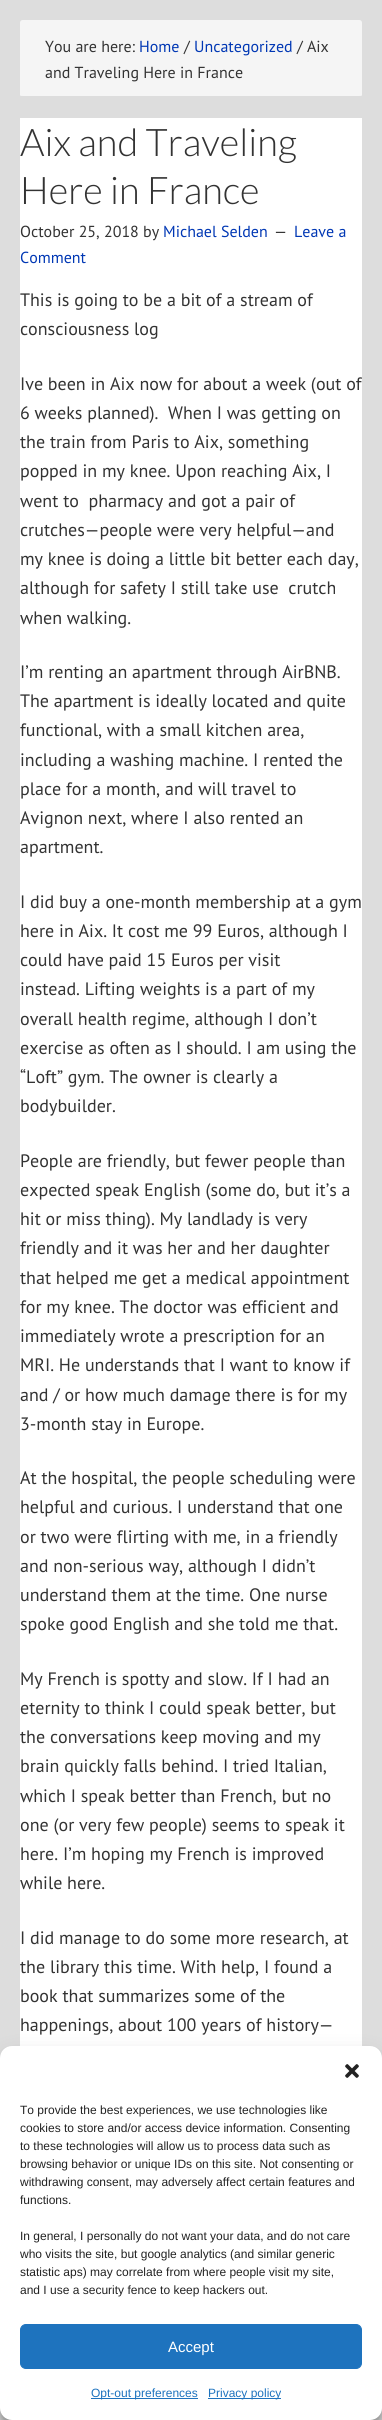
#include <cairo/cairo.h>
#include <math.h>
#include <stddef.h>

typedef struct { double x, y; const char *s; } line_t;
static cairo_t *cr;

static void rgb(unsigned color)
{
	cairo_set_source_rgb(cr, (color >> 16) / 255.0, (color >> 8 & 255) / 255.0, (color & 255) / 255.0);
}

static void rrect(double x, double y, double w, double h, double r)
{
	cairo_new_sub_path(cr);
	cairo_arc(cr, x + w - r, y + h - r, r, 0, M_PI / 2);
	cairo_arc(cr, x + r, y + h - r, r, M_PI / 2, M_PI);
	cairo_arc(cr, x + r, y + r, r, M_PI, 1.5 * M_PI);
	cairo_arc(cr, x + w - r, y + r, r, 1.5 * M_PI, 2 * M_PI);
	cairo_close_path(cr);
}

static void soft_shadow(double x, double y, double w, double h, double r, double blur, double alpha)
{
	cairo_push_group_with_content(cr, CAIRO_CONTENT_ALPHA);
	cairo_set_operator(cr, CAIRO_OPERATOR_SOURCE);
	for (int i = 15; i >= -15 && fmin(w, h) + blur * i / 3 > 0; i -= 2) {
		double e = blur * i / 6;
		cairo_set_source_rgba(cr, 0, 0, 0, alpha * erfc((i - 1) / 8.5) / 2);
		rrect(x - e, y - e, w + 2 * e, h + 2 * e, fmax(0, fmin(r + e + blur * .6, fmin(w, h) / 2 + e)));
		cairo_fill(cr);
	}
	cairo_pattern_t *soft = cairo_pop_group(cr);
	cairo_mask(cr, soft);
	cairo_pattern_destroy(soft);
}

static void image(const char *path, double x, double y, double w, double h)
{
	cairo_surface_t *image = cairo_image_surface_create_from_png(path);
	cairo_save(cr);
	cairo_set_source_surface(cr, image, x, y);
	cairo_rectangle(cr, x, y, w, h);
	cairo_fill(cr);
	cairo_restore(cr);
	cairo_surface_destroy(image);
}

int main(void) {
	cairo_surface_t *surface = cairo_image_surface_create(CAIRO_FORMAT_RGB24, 382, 2420);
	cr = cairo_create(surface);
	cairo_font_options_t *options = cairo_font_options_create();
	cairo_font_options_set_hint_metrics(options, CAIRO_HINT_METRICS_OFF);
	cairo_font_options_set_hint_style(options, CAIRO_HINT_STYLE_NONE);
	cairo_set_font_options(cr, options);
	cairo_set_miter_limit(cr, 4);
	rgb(0xdddddd);
	cairo_paint(cr);
	rgb(0xf5f5f5);
	cairo_new_path(cr);
	cairo_move_to(cr, 23, 20);
	cairo_line_to(cr, 359, 20);
	cairo_curve_to(cr, 361, 20, 362, 21, 362, 23);
	cairo_line_to(cr, 362, 95);
	cairo_curve_to(cr, 362, 96, 361, 96, 359, 96);
	cairo_line_to(cr, 23, 96);
	cairo_curve_to(cr, 21, 96, 20, 96, 20, 95);
	cairo_line_to(cr, 20, 23);
	cairo_curve_to(cr, 20, 21, 21, 20, 23, 20);
	cairo_close_path(cr);
	cairo_fill(cr);
	rgb(0xffffff);
	cairo_rectangle(cr, 20, 118, 342, 1928);
	cairo_fill(cr);
	rgb(0x000000);
	soft_shadow(0, 2052, 382, 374, 12, 3, 0.23);
	soft_shadow(0, 2056, 382, 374, 12, 10, 0.19);
	rgb(0xffffff);
	rrect(0, 2046, 382, 374, 12);
	cairo_fill(cr);
	image("img/1.png", 345, 2064, 14, 14);
	rgb(0x1e73be);
	rrect(20.5, 2324.5, 341, 44, 5.5);
	cairo_fill_preserve(cr);
	cairo_set_line_width(cr, 1);
	cairo_stroke(cr);
	cairo_rectangle(cr, 91, 2398, 107, 1);
	cairo_fill(cr);
	cairo_rectangle(cr, 208, 2398, 73, 1);
	cairo_fill(cr);
	cairo_select_font_face(cr, "PT Sans", CAIRO_FONT_SLANT_NORMAL, CAIRO_FONT_WEIGHT_NORMAL);
	cairo_set_font_size(cr, 16);
	rgb(0x333333);
	cairo_move_to(cr, 45, 52);
	cairo_show_text(cr, "You are here:");
	rgb(0x0037b4);
	cairo_move_to(cr, 139, 52);
	cairo_show_text(cr, "Home");
	rgb(0x333333);
	cairo_move_to(cr, 184, 52);
	cairo_show_text(cr, "/");
	rgb(0x0037b4);
	cairo_move_to(cr, 194, 52);
	cairo_show_text(cr, "Uncategorized");
	rgb(0x333333);
	cairo_move_to(cr, 297, 52);
	cairo_show_text(cr, "/ Aix");
	cairo_move_to(cr, 45, 78);
	cairo_show_text(cr, "and Traveling Here in France");
	cairo_select_font_face(cr, "Lato Light", CAIRO_FONT_SLANT_NORMAL, CAIRO_FONT_WEIGHT_NORMAL);
	cairo_set_font_size(cr, 38);
	cairo_move_to(cr, 20, 156);
	cairo_show_text(cr, "Aix and Traveling");
	cairo_move_to(cr, 20, 204);
	cairo_show_text(cr, "Here in France");
	cairo_select_font_face(cr, "PT Sans", CAIRO_FONT_SLANT_NORMAL, CAIRO_FONT_WEIGHT_NORMAL);
	cairo_set_font_size(cr, 16);
	cairo_move_to(cr, 20, 237);
	cairo_show_text(cr, "October 25, 2018 by");
	rgb(0x0037b4);
	cairo_move_to(cr, 163, 237);
	cairo_show_text(cr, "Michael Selden");
	rgb(0x333333);
	cairo_move_to(cr, 274, 237);
	cairo_show_text(cr, "—");
	rgb(0x0037b4);
	cairo_move_to(cr, 294, 237);
	cairo_show_text(cr, "Leave a");
	cairo_move_to(cr, 20, 263);
	cairo_show_text(cr, "Comment");
	cairo_set_font_size(cr, 18);
	rgb(0x333333);
	{
		static const line_t items[] = {
			{20, 306, "This is going to be a bit of a stream of"},
			{20, 335, "consciousness log"},
			{20, 390, "Ive been in Aix now for about a week (out of"},
			{20, 419, "6 weeks planned).  When I was getting on"},
			{20, 448, "the train from Paris to Aix, something"},
			{20, 477, "popped in my knee. Upon reaching Aix, I"},
			{20, 507, "went to  pharmacy and got a pair of"},
			{20, 536, "crutches—people were very helpful—and"},
			{20, 565, "my knee is doing a little bit better each day,"},
			{20, 594, "although for safety I still take use  crutch"},
			{20, 624, "when walking."},
			{20, 678, "I’m renting an apartment through AirBNB."},
			{20, 707, "The apartment is ideally located and quite"},
			{20, 736, "functional, with a small kitchen area,"},
			{20, 766, "including a washing machine. I rented the"},
			{20, 795, "place for a month, and will travel to"},
			{20, 824, "Avignon next, where I also rented an"},
			{20, 853, "apartment."},
			{20, 908, "I did buy a one-month membership at a gym"},
			{20, 937, "here in Aix. It cost me 99 Euros, although I"},
			{20, 966, "could have paid 15 Euros per visit"},
			{20, 995, "instead. Lifting weights is a part of my"},
			{20, 1025, "overall health regime, although I don’t"},
			{20, 1054, "exercise as often as I should. I am using the"},
			{20, 1083, "“Loft” gym. The owner is clearly a"},
			{20, 1112, "bodybuilder."},
			{20, 1167, "People are friendly, but fewer people than"},
			{20, 1196, "expected speak English (some do, but it’s a"},
			{20, 1225, "hit or miss thing). My landlady is very"},
			{20, 1254, "friendly and it was her and her daughter"},
			{20, 1284, "that helped me get a medical appointment"},
			{20, 1313, "for my knee. The doctor was efficient and"},
			{20, 1342, "immediately wrote a prescription for an"},
			{20, 1371, "MRI. He understands that I want to know if"},
			{20, 1401, "and / or how much damage there is for my"},
			{20, 1430, "3-month stay in Europe."},
			{20, 1484, "At the hospital, the people scheduling were"},
			{20, 1513, "helpful and curious. I understand that one"},
			{20, 1543, "or two were flirting with me, in a friendly"},
			{20, 1572, "and non-serious way, although I didn’t"},
			{20, 1601, "understand them at the time. One nurse"},
			{20, 1630, "spoke good English and she told me that."},
			{20, 1685, "My French is spotty and slow. If I had an"},
			{20, 1714, "eternity to think I could speak better, but"},
			{20, 1743, "the conversations keep moving and my"},
			{20, 1772, "brain quickly falls behind. I tried Italian,"},
			{20, 1802, "which I speak better than French, but no"},
			{20, 1831, "one (or very few people) seems to speak it"},
			{20, 1860, "here. I’m hoping my French is improved"},
			{20, 1889, "while here."},
			{20, 1944, "I did manage to do some more research, at"},
			{20, 1973, "the library this time. With help, I found a"},
			{20, 2002, "book that summarizes some of the"},
			{20, 2031, "happenings, about 100 years of history—"},
		};
		for (size_t i = 0; i < sizeof items / sizeof *items; i++) {
			cairo_move_to(cr, items[i].x, items[i].y);
			cairo_show_text(cr, items[i].s);
		}
	}
	cairo_select_font_face(cr, "Liberation Sans", CAIRO_FONT_SLANT_NORMAL, CAIRO_FONT_WEIGHT_NORMAL);
	cairo_set_font_size(cr, 12);
	rgb(0x222222);
	{
		static const line_t items[] = {
			{20, 2114, "To provide the best experiences, we use technologies like"},
			{20, 2132, "cookies to store and/or access device information. Consenting"},
			{20, 2150, "to these technologies will allow us to process data such as"},
			{20, 2168, "browsing behavior or unique IDs on this site. Not consenting or"},
			{20, 2186, "withdrawing consent, may adversely affect certain features and"},
			{20, 2204, "functions."},
			{20, 2240, "In general, I personally do not want your data, and do not care"},
			{20, 2258, "who visits the site, but google analytics (and similar generic"},
			{20, 2276, "statistic aps) may correlate from where people visit my site,"},
			{20, 2294, "and I use a security fence to keep hackers out."},
		};
		for (size_t i = 0; i < sizeof items / sizeof *items; i++) {
			cairo_move_to(cr, items[i].x, items[i].y);
			cairo_show_text(cr, items[i].s);
		}
	}
	cairo_set_font_size(cr, 15);
	rgb(0xffffff);
	cairo_move_to(cr, 168, 2352);
	cairo_show_text(cr, "Accept");
	cairo_set_font_size(cr, 12);
	rgb(0x1e73be);
	cairo_move_to(cr, 91, 2397);
	cairo_show_text(cr, "Opt-out preferences");
	cairo_move_to(cr, 208, 2397);
	cairo_show_text(cr, "Privacy policy");
	cairo_surface_write_to_png(surface, "page.png");
	cairo_font_options_destroy(options);
	cairo_destroy(cr);
	cairo_surface_destroy(surface);
	return 0;
}
